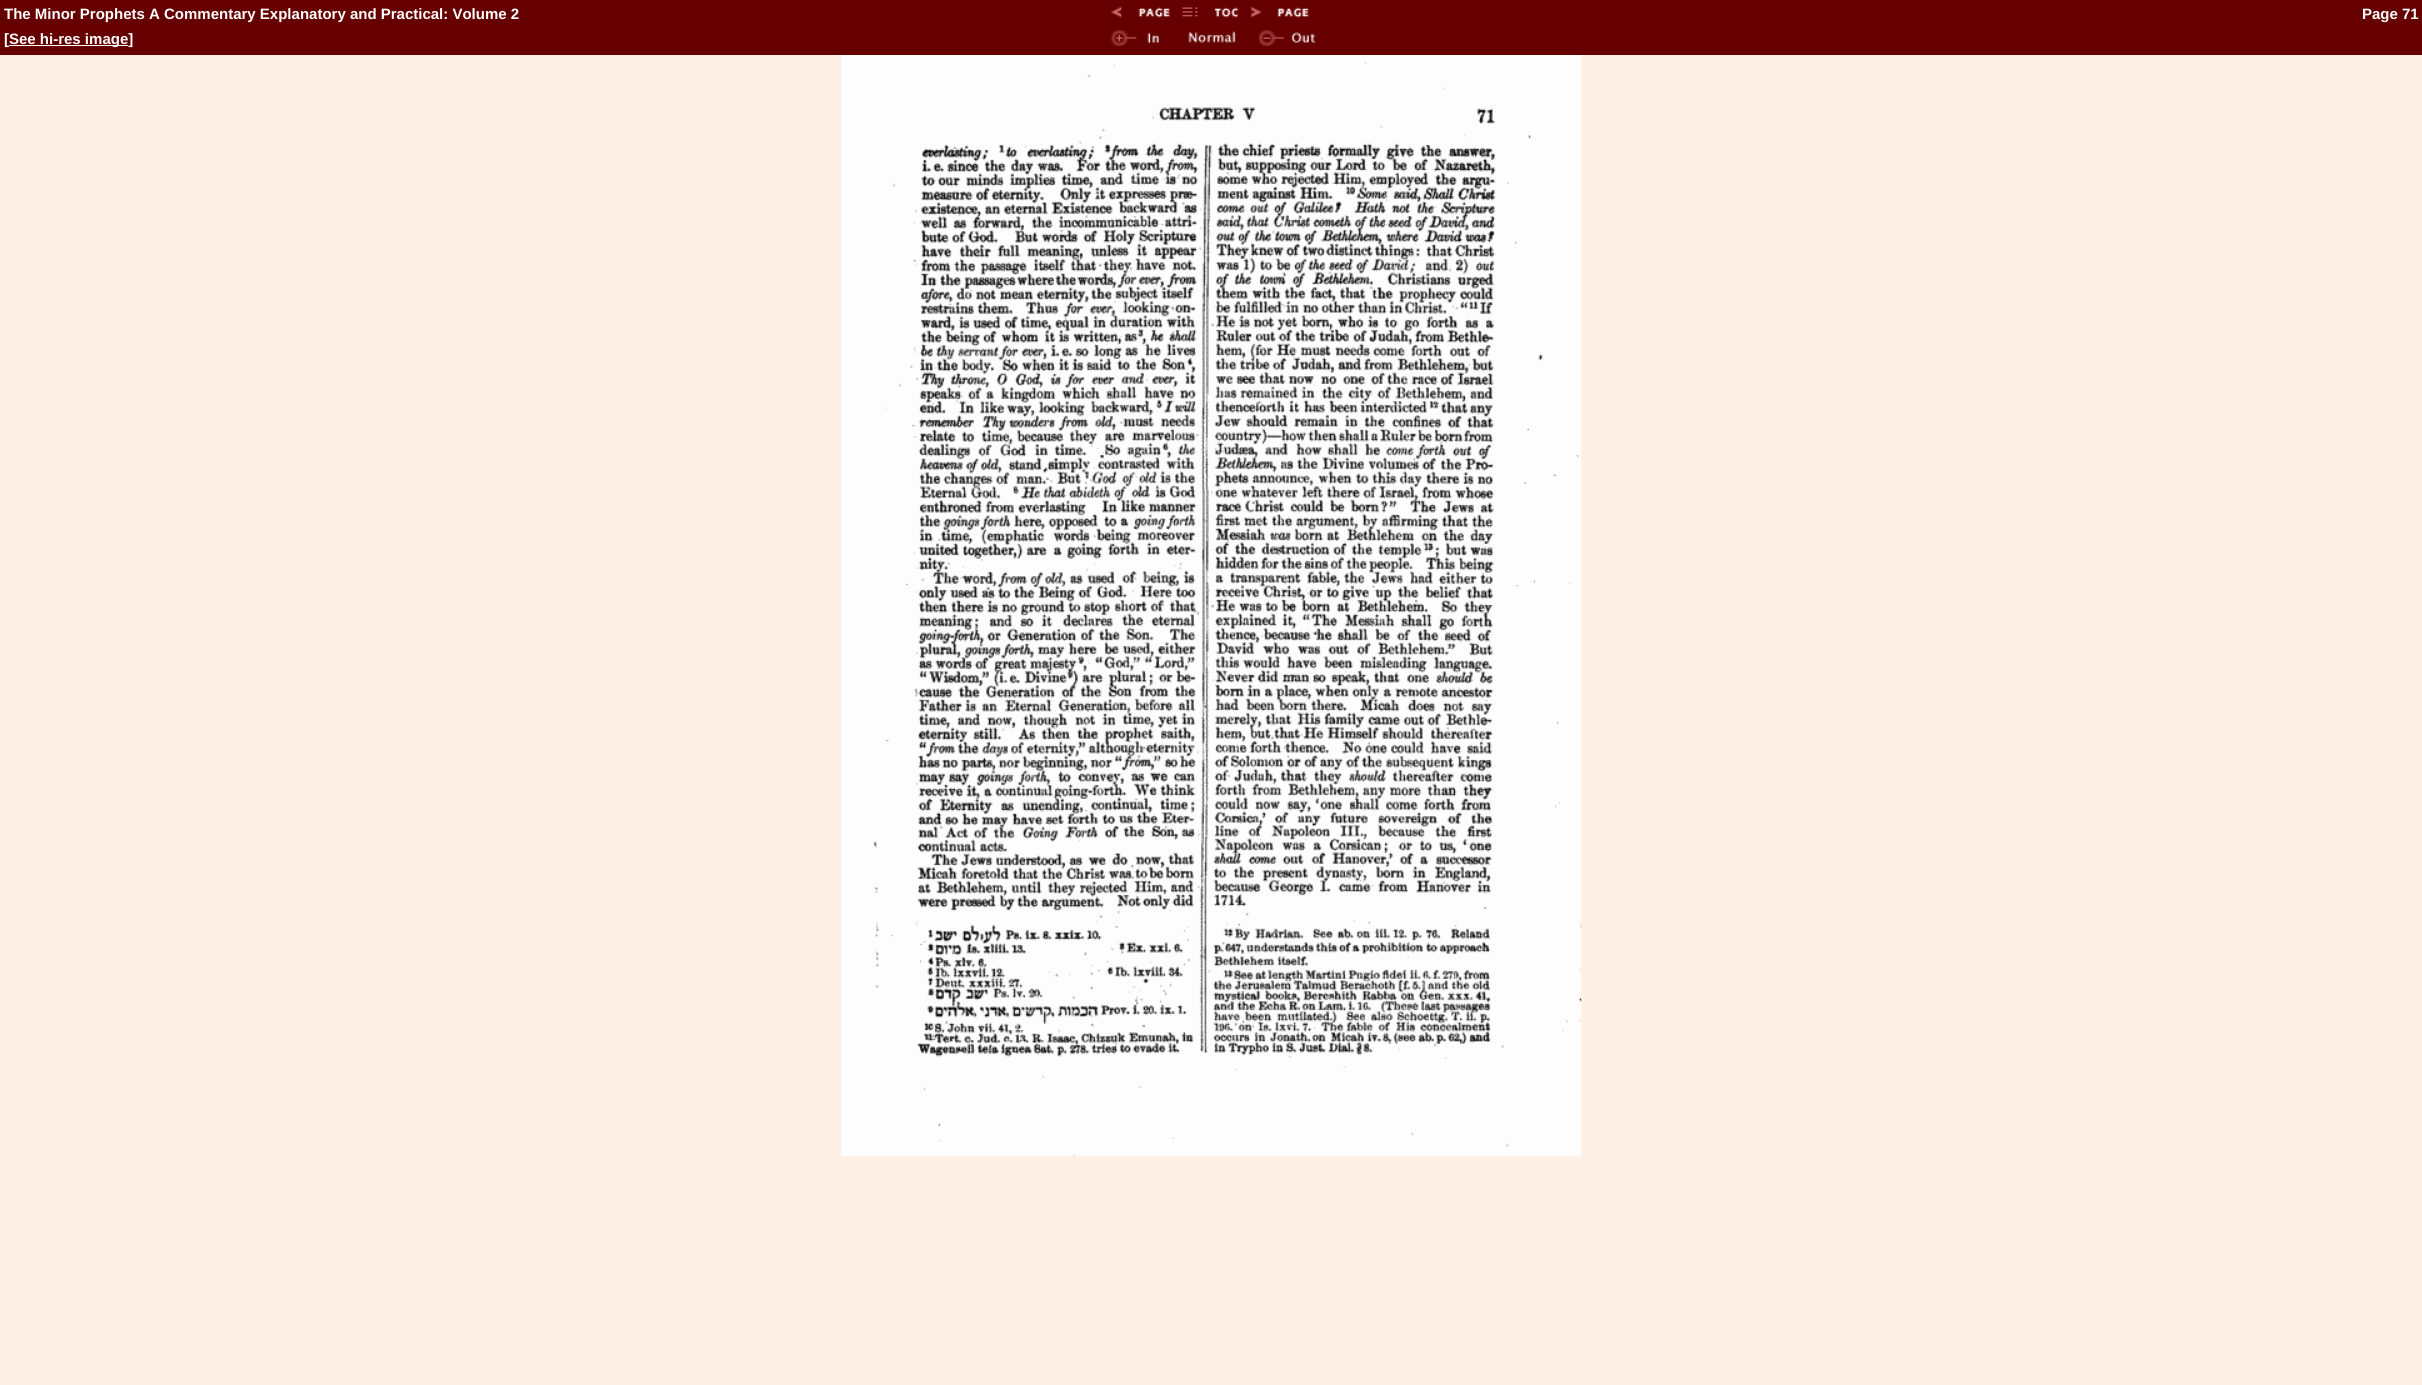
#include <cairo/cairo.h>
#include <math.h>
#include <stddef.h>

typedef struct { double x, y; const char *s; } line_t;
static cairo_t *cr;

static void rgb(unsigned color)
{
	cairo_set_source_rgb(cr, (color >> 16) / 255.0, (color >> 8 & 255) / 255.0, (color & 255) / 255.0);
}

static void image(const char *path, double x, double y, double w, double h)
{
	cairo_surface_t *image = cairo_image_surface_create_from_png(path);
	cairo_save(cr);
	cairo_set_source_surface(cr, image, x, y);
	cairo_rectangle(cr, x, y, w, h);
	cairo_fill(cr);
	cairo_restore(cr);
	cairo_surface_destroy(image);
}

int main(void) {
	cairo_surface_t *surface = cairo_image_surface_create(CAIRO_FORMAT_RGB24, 2422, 1385);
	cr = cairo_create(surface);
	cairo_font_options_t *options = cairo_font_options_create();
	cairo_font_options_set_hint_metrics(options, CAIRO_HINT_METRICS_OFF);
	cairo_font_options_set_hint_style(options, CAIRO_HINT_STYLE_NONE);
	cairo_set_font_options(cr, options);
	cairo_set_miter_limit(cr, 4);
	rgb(0xfff0e6);
	cairo_paint(cr);
	rgb(0x660000);
	cairo_rectangle(cr, 0, 0, 2422, 55);
	cairo_fill(cr);
	image("img/1.png", 1111, 6, 60, 12);
	image("img/2.png", 1182, 7, 56, 11);
	image("img/3.png", 1251, 6, 58, 12);
	rgb(0xffffff);
	cairo_rectangle(cr, 9, 45, 119, 1);
	cairo_fill(cr);
	image("img/4.png", 1111, 30, 48, 17);
	image("img/5.png", 1188, 31, 48, 12);
	image("img/6.png", 1258, 30, 58, 17);
	image("img/7.png", 841, 55, 741, 1102);
	cairo_select_font_face(cr, "Liberation Sans", CAIRO_FONT_SLANT_NORMAL, CAIRO_FONT_WEIGHT_BOLD);
	cairo_set_font_size(cr, 15);
	{
		static const line_t items[] = {
			{4, 19, "The Minor Prophets A Commentary Explanatory and Practical: Volume 2"},
			{2362, 19, "Page 71"},
			{4, 44, "["},
			{9, 44, "See hi-res image]"},
		};
		for (size_t i = 0; i < sizeof items / sizeof *items; i++) {
			cairo_move_to(cr, items[i].x, items[i].y);
			cairo_show_text(cr, items[i].s);
		}
	}
	cairo_surface_write_to_png(surface, "page.png");
	cairo_font_options_destroy(options);
	cairo_destroy(cr);
	cairo_surface_destroy(surface);
	return 0;
}
